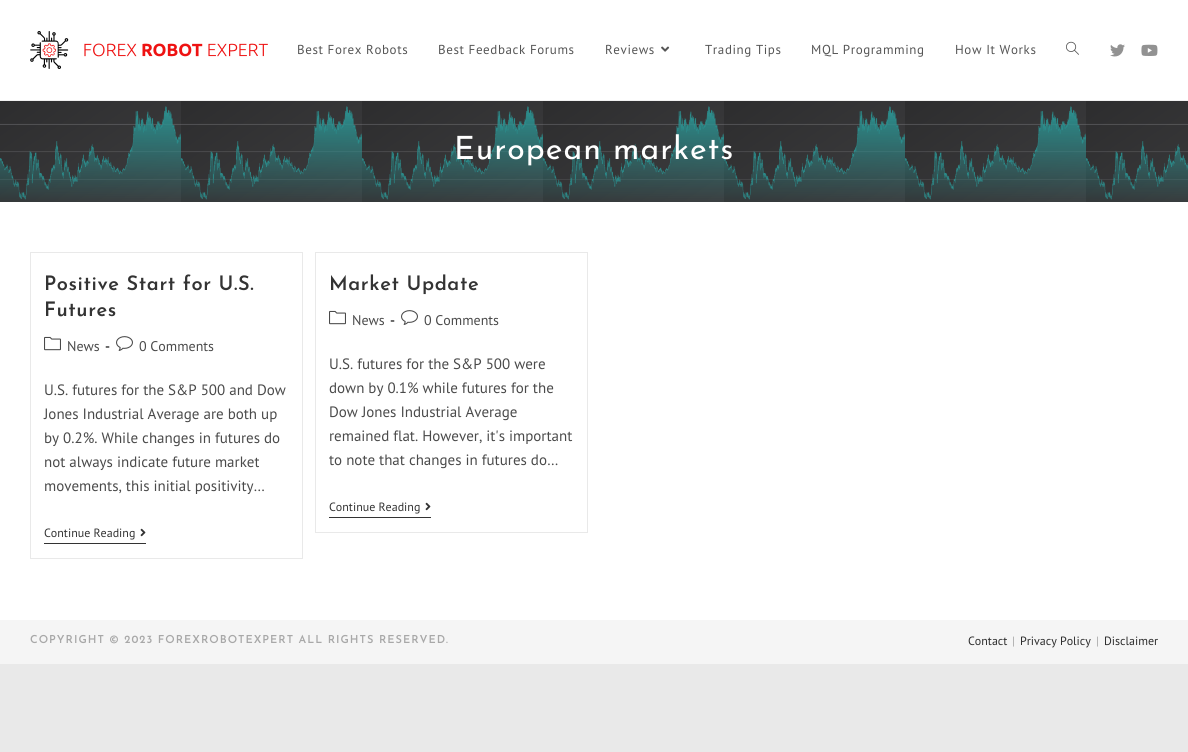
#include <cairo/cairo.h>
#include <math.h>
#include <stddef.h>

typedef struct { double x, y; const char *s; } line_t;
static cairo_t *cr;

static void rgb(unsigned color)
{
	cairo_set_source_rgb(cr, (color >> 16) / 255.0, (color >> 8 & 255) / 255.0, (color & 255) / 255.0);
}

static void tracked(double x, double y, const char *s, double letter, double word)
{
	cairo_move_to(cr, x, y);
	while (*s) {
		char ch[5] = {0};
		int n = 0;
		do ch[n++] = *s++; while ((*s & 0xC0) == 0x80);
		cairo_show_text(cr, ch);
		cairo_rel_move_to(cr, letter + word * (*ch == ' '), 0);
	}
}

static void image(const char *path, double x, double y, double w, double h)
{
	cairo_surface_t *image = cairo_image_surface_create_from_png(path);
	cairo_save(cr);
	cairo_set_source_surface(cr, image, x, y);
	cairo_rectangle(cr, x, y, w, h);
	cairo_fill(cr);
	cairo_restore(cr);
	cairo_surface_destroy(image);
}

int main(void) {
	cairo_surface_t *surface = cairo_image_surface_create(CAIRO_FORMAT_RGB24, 1188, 752);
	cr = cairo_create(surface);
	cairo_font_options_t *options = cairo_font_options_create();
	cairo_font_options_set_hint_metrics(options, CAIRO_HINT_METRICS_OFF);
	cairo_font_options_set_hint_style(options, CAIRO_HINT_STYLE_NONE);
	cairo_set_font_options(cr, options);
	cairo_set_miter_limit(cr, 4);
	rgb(0xe9e9e9);
	cairo_paint(cr);
	rgb(0xffffff);
	cairo_rectangle(cr, 0, 0, 1188, 620);
	cairo_fill(cr);
	rgb(0xf1f1f1);
	cairo_rectangle(cr, 0, 100, 1188, 1);
	cairo_fill(cr);
	image("img/1.png", 30, 31, 238, 38);
	image("img/2.png", 661, 46, 9, 6);
	image("img/3.png", 1066, 41, 13, 14);
	image("img/4.png", 1110, 44, 15, 13);
	image("img/5.png", 1141, 44, 17, 12);
	image("img/6.png", 0, 101, 1188, 101);
	cairo_rectangle(cr, 30.5, 252.5, 272, 306);
	rgb(0xe9e9e9);
	cairo_set_line_width(cr, 1);
	cairo_stroke(cr);
	image("img/7.png", 44, 336, 17, 15);
	image("img/8.png", 116, 336, 17, 15);
	rgb(0x333333);
	cairo_rectangle(cr, 44, 543, 102, 1);
	cairo_fill(cr);
	image("img/9.png", 140, 528, 6, 9);
	cairo_rectangle(cr, 315.5, 252.5, 272, 280);
	rgb(0xe9e9e9);
	cairo_stroke(cr);
	image("img/7.png", 329, 310, 17, 15);
	image("img/8.png", 401, 310, 17, 15);
	rgb(0x333333);
	cairo_rectangle(cr, 329, 517, 102, 1);
	cairo_fill(cr);
	image("img/9.png", 425, 502, 6, 9);
	rgb(0xf5f5f5);
	cairo_rectangle(cr, 0, 620, 1188, 44);
	cairo_fill(cr);
	cairo_select_font_face(cr, "PT Sans", CAIRO_FONT_SLANT_NORMAL, CAIRO_FONT_WEIGHT_NORMAL);
	cairo_set_font_size(cr, 13);
	rgb(0x555555);
	{
		static const line_t items[] = {
			{297, 54, "Best Forex Robots"},
			{438, 54, "Best Feedback Forums"},
			{605, 54, "Reviews"},
			{705, 54, "Trading Tips"},
			{811, 54, "MQL Programming"},
			{955, 54, "How It Works"},
		};
		for (size_t i = 0; i < sizeof items / sizeof *items; i++) {
			tracked(items[i].x, items[i].y, items[i].s, 0.6, 0);
		}
	}
	cairo_select_font_face(cr, "Josefin Sans", CAIRO_FONT_SLANT_NORMAL, CAIRO_FONT_WEIGHT_NORMAL);
	cairo_set_font_size(cr, 32);
	rgb(0xffffff);
	tracked(454, 159, "European markets", 1, 0);
	cairo_select_font_face(cr, "Josefin Sans SemiBold", CAIRO_FONT_SLANT_NORMAL, CAIRO_FONT_WEIGHT_NORMAL);
	cairo_set_font_size(cr, 20);
	rgb(0x333333);
	tracked(44, 290, "Positive Start for U.S.", 0.6, 0);
	tracked(44, 316, "Futures", 0.6, 0);
	cairo_select_font_face(cr, "PT Sans", CAIRO_FONT_SLANT_NORMAL, CAIRO_FONT_WEIGHT_NORMAL);
	cairo_set_font_size(cr, 14);
	rgb(0x4a4a4a);
	cairo_move_to(cr, 67, 351);
	cairo_show_text(cr, "News");
	cairo_select_font_face(cr, "PT Sans", CAIRO_FONT_SLANT_NORMAL, CAIRO_FONT_WEIGHT_BOLD);
	cairo_move_to(cr, 105, 351);
	cairo_show_text(cr, "-");
	cairo_select_font_face(cr, "PT Sans", CAIRO_FONT_SLANT_NORMAL, CAIRO_FONT_WEIGHT_NORMAL);
	cairo_move_to(cr, 139, 351);
	cairo_show_text(cr, "0 Comments");
	cairo_set_font_size(cr, 15);
	{
		static const line_t items[] = {
			{44, 395, "U.S. futures for the S&P 500 and Dow"},
			{44, 419, "Jones Industrial Average are both up"},
			{44, 443, "by 0.2%. While changes in futures do"},
			{44, 467, "not always indicate future market"},
			{44, 491, "movements, this initial positivity…"},
		};
		for (size_t i = 0; i < sizeof items / sizeof *items; i++) {
			cairo_move_to(cr, items[i].x, items[i].y);
			cairo_show_text(cr, items[i].s);
		}
	}
	cairo_set_font_size(cr, 12);
	rgb(0x333333);
	cairo_move_to(cr, 44, 537);
	cairo_show_text(cr, "Continue Reading");
	cairo_select_font_face(cr, "Josefin Sans SemiBold", CAIRO_FONT_SLANT_NORMAL, CAIRO_FONT_WEIGHT_NORMAL);
	cairo_set_font_size(cr, 20);
	tracked(329, 290, "Market Update", 0.6, 0);
	cairo_select_font_face(cr, "PT Sans", CAIRO_FONT_SLANT_NORMAL, CAIRO_FONT_WEIGHT_NORMAL);
	cairo_set_font_size(cr, 14);
	rgb(0x4a4a4a);
	cairo_move_to(cr, 352, 325);
	cairo_show_text(cr, "News");
	cairo_select_font_face(cr, "PT Sans", CAIRO_FONT_SLANT_NORMAL, CAIRO_FONT_WEIGHT_BOLD);
	cairo_move_to(cr, 390, 325);
	cairo_show_text(cr, "-");
	cairo_select_font_face(cr, "PT Sans", CAIRO_FONT_SLANT_NORMAL, CAIRO_FONT_WEIGHT_NORMAL);
	cairo_move_to(cr, 424, 325);
	cairo_show_text(cr, "0 Comments");
	cairo_set_font_size(cr, 15);
	{
		static const line_t items[] = {
			{329, 369, "U.S. futures for the S&P 500 were"},
			{329, 393, "down by 0.1% while futures for the"},
			{329, 417, "Dow Jones Industrial Average"},
			{329, 441, "remained flat. However, it's important"},
			{329, 465, "to note that changes in futures do…"},
		};
		for (size_t i = 0; i < sizeof items / sizeof *items; i++) {
			cairo_move_to(cr, items[i].x, items[i].y);
			cairo_show_text(cr, items[i].s);
		}
	}
	cairo_set_font_size(cr, 12);
	rgb(0x333333);
	cairo_move_to(cr, 329, 511);
	cairo_show_text(cr, "Continue Reading");
	cairo_select_font_face(cr, "Josefin Sans SemiBold", CAIRO_FONT_SLANT_NORMAL, CAIRO_FONT_WEIGHT_NORMAL);
	cairo_set_font_size(cr, 11);
	rgb(0xa8a8a8);
	tracked(30, 643, "COPYRIGHT © 2023 FOREXROBOTEXPERT ALL RIGHTS RESERVED.", 1, 0);
	cairo_select_font_face(cr, "PT Sans", CAIRO_FONT_SLANT_NORMAL, CAIRO_FONT_WEIGHT_NORMAL);
	cairo_set_font_size(cr, 12);
	rgb(0x2d2d2d);
	cairo_move_to(cr, 968, 645);
	cairo_show_text(cr, "Contact");
	rgb(0xa8a8a8);
	cairo_move_to(cr, 1012, 645);
	cairo_show_text(cr, "|");
	rgb(0x2d2d2d);
	cairo_move_to(cr, 1020, 645);
	cairo_show_text(cr, "Privacy Policy");
	rgb(0xa8a8a8);
	cairo_move_to(cr, 1096, 645);
	cairo_show_text(cr, "|");
	rgb(0x2d2d2d);
	cairo_move_to(cr, 1104, 645);
	cairo_show_text(cr, "Disclaimer");
	cairo_surface_write_to_png(surface, "page.png");
	cairo_font_options_destroy(options);
	cairo_destroy(cr);
	cairo_surface_destroy(surface);
	return 0;
}
